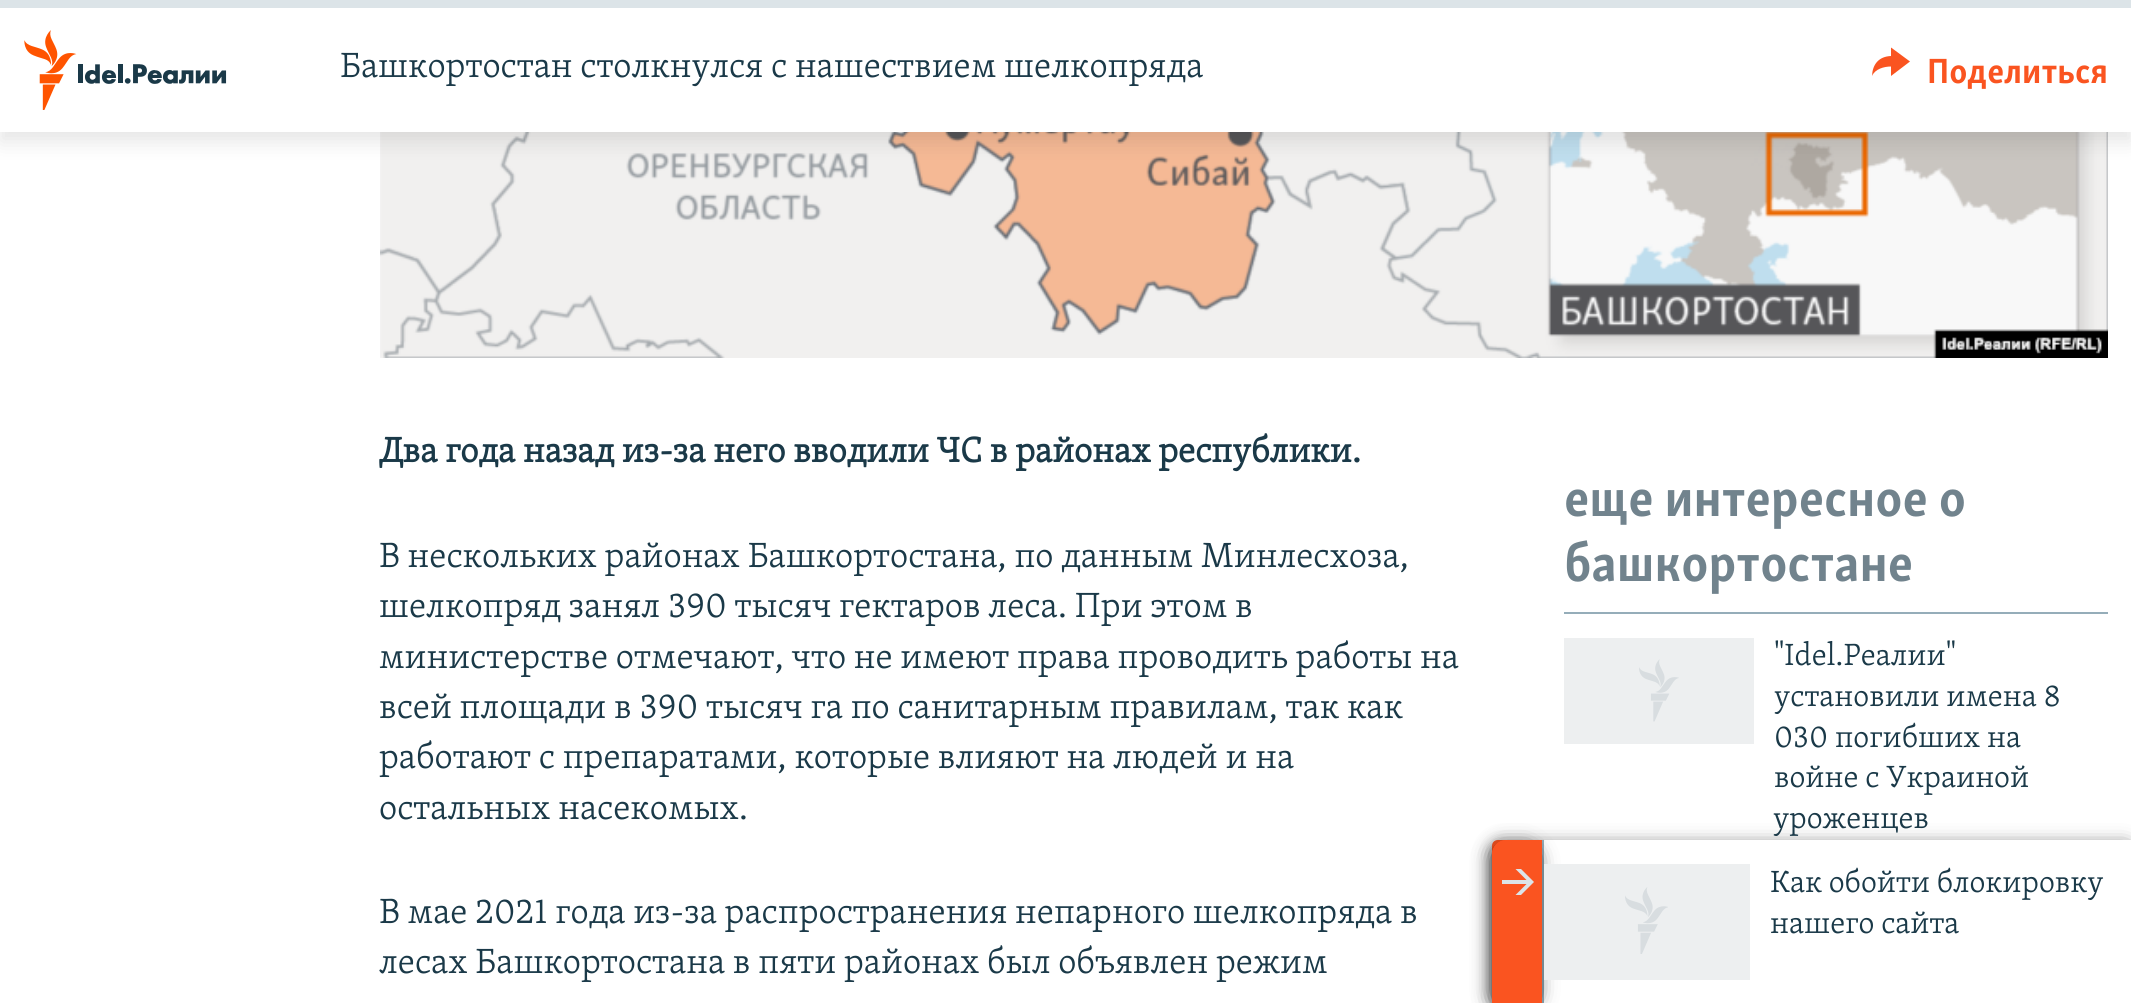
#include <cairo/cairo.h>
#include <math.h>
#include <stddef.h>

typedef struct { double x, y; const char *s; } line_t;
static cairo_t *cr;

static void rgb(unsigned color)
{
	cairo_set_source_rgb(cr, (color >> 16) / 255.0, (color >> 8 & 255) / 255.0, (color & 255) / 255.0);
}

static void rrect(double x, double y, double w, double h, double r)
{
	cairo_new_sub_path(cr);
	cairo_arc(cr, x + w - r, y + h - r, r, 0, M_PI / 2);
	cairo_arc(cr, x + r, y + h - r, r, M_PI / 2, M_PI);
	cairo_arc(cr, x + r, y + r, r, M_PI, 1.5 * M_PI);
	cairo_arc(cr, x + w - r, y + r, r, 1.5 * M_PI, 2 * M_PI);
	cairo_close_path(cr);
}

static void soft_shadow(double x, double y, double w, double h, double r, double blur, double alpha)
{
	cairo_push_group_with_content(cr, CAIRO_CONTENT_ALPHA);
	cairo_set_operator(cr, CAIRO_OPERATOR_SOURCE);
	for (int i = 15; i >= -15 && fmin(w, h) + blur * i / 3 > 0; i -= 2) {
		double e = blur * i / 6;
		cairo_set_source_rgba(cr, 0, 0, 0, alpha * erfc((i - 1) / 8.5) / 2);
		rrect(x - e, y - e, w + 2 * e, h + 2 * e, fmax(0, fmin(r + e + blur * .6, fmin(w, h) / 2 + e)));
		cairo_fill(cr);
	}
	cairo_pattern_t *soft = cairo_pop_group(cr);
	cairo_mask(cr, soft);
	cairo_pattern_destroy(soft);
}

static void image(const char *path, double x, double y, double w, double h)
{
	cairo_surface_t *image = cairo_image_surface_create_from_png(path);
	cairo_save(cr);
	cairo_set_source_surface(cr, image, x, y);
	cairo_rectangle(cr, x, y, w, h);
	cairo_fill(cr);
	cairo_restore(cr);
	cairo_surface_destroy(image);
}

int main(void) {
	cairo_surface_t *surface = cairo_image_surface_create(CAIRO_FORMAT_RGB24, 2131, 1003);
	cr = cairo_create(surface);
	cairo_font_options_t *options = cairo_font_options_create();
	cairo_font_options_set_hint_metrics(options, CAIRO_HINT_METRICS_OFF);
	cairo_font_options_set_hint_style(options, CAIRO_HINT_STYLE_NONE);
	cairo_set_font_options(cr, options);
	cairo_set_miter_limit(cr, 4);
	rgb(0xffffff);
	cairo_paint(cr);
	image("img/2.png", 380, 132, 1728, 226);
	rgb(0x000000);
	soft_shadow(0, 10, 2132, 132, 0, 10, 0.1);
	rgb(0xffffff);
	cairo_rectangle(cr, 0, 8, 2131, 124);
	cairo_fill(cr);
	rgb(0xdce4e8);
	cairo_rectangle(cr, 0, 0, 2131, 8);
	cairo_fill(cr);
	image("img/1.png", 24, 30, 203, 80);
	rgb(0xfa5420);
	cairo_new_path(cr);
	cairo_move_to(cr, 1872, 76);
	cairo_curve_to(cr, 1872.5, 64, 1879, 56.5, 1891, 56);
	cairo_line_to(cr, 1891, 47.5);
	cairo_line_to(cr, 1910, 61.5);
	cairo_line_to(cr, 1891, 76);
	cairo_line_to(cr, 1891, 66.5);
	cairo_curve_to(cr, 1884, 66.5, 1875, 69, 1872, 76);
	cairo_close_path(cr);
	cairo_fill(cr);
	rgb(0x95adb9);
	cairo_rectangle(cr, 1564, 612, 544, 2);
	cairo_fill(cr);
	rgb(0xedeff0);
	cairo_rectangle(cr, 1564, 638, 190, 106);
	cairo_fill(cr);
	image("img/3.png", 1639, 659, 40, 63);
	rgb(0x000000);
	soft_shadow(1496, 848, 632, 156, 2, 10, 0.85);
	rgb(0xfa5420);
	cairo_new_path(cr);
	cairo_move_to(cr, 1498, 840);
	cairo_line_to(cr, 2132, 840);
	cairo_line_to(cr, 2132, 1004);
	cairo_line_to(cr, 1492, 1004);
	cairo_line_to(cr, 1492, 846);
	cairo_curve_to(cr, 1492, 842.5, 1494.5, 840, 1498, 840);
	cairo_close_path(cr);
	cairo_fill(cr);
	rgb(0xffffff);
	cairo_rectangle(cr, 1544, 840, 587, 163);
	cairo_fill(cr);
	rgb(0x95adb9);
	cairo_rectangle(cr, 1542, 840, 2, 163);
	cairo_fill(cr);
	cairo_save(cr);
	cairo_set_fill_rule(cr, CAIRO_FILL_RULE_EVEN_ODD);
	cairo_new_path(cr);
	cairo_move_to(cr, 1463, 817);
	cairo_line_to(cr, 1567, 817);
	cairo_line_to(cr, 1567, 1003);
	cairo_line_to(cr, 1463, 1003);
	cairo_close_path(cr);
	cairo_move_to(cr, 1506, 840);
	cairo_line_to(cr, 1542, 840);
	cairo_line_to(cr, 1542, 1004);
	cairo_line_to(cr, 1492, 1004);
	cairo_line_to(cr, 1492, 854);
	cairo_curve_to(cr, 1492, 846.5, 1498.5, 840, 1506, 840);
	cairo_close_path(cr);
	cairo_clip(cr);
	rgb(0x000000);
	soft_shadow(1494, 848, 42, 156, 10, 10, 0.85);
	cairo_restore(cr);
	rgb(0xdce4e8);
	cairo_new_path(cr);
	cairo_move_to(cr, 1534, 882);
	cairo_line_to(cr, 1521, 869);
	cairo_line_to(cr, 1515.5, 869);
	cairo_line_to(cr, 1526.5, 880);
	cairo_line_to(cr, 1502, 880);
	cairo_line_to(cr, 1502, 884);
	cairo_line_to(cr, 1526.5, 884);
	cairo_line_to(cr, 1515.5, 895);
	cairo_line_to(cr, 1521, 895);
	cairo_close_path(cr);
	cairo_fill(cr);
	rgb(0xedeff0);
	cairo_rectangle(cr, 1544, 864, 206, 116);
	cairo_fill(cr);
	image("img/4.png", 1625, 887, 43, 67);
	cairo_select_font_face(cr, "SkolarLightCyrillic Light", CAIRO_FONT_SLANT_NORMAL, CAIRO_FONT_WEIGHT_NORMAL);
	cairo_set_font_size(cr, 36);
	rgb(0x1a3948);
	cairo_move_to(cr, 340, 77);
	cairo_show_text(cr, "Башкортостан столкнулся с нашествием шелкопряда");
	cairo_select_font_face(cr, "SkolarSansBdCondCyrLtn", CAIRO_FONT_SLANT_NORMAL, CAIRO_FONT_WEIGHT_BOLD);
	rgb(0xfa5420);
	cairo_move_to(cr, 1927, 83);
	cairo_show_text(cr, "Поделиться");
	cairo_select_font_face(cr, "SkolarLightCyrillic", CAIRO_FONT_SLANT_NORMAL, CAIRO_FONT_WEIGHT_BOLD);
	rgb(0x1a3948);
	cairo_move_to(cr, 379, 462);
	cairo_show_text(cr, "Два года назад из-за него вводили ЧС в районах республики.");
	cairo_select_font_face(cr, "SkolarLightCyrillic Light", CAIRO_FONT_SLANT_NORMAL, CAIRO_FONT_WEIGHT_NORMAL);
	{
		static const line_t items[] = {
			{379, 567, "В нескольких районах Башкортостана, по данным Минлесхоза,"},
			{379, 617, "шелкопряд занял 390 тысяч гектаров леса. При этом в"},
			{379, 668, "министерстве отмечают, что не имеют права проводить работы на"},
			{379, 718, "всей площади в 390 тысяч га по санитарным правилам, так как"},
			{379, 768, "работают с препаратами, которые влияют на людей и на"},
			{379, 819, "остальных насекомых."},
			{379, 923, "В мае 2021 года из-за распространения непарного шелкопряда в"},
			{379, 973, "лесах Башкортостана в пяти районах был объявлен режим"},
		};
		for (size_t i = 0; i < sizeof items / sizeof *items; i++) {
			cairo_move_to(cr, items[i].x, items[i].y);
			cairo_show_text(cr, items[i].s);
		}
	}
	cairo_select_font_face(cr, "SkolarSansBdCondCyrLtn", CAIRO_FONT_SLANT_NORMAL, CAIRO_FONT_WEIGHT_BOLD);
	cairo_set_font_size(cr, 54);
	rgb(0x71838d);
	cairo_move_to(cr, 1564, 516);
	cairo_show_text(cr, "еще интересное о");
	cairo_move_to(cr, 1564, 581);
	cairo_show_text(cr, "башкортостане");
	cairo_select_font_face(cr, "SkolarLightCyrillic Light", CAIRO_FONT_SLANT_NORMAL, CAIRO_FONT_WEIGHT_NORMAL);
	cairo_set_font_size(cr, 31.5);
	rgb(0x1a3948);
	{
		static const line_t items[] = {
			{1774, 665, "\"Idel.Реалии\""},
			{1774, 706, "установили имена 8"},
			{1774, 747, "030 погибших на"},
			{1774, 787, "войне с Украиной"},
			{1773, 828, "уроженцев"},
			{1770, 892, "Как обойти блокировку"},
			{1770, 933, "нашего сайта"},
		};
		for (size_t i = 0; i < sizeof items / sizeof *items; i++) {
			cairo_move_to(cr, items[i].x, items[i].y);
			cairo_show_text(cr, items[i].s);
		}
	}
	cairo_surface_write_to_png(surface, "page.png");
	cairo_font_options_destroy(options);
	cairo_destroy(cr);
	cairo_surface_destroy(surface);
	return 0;
}
